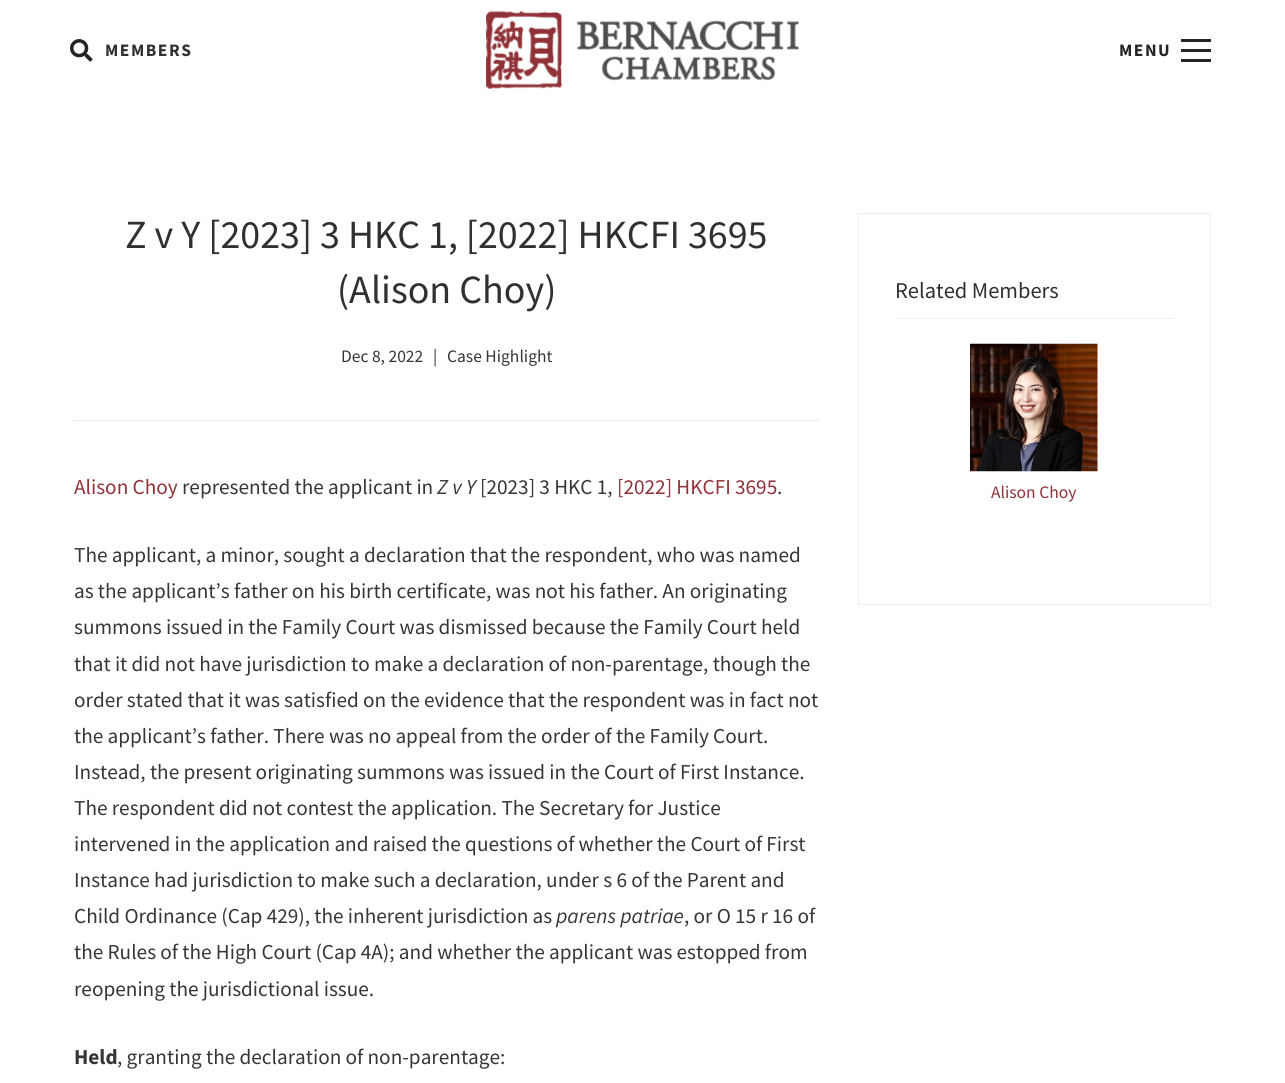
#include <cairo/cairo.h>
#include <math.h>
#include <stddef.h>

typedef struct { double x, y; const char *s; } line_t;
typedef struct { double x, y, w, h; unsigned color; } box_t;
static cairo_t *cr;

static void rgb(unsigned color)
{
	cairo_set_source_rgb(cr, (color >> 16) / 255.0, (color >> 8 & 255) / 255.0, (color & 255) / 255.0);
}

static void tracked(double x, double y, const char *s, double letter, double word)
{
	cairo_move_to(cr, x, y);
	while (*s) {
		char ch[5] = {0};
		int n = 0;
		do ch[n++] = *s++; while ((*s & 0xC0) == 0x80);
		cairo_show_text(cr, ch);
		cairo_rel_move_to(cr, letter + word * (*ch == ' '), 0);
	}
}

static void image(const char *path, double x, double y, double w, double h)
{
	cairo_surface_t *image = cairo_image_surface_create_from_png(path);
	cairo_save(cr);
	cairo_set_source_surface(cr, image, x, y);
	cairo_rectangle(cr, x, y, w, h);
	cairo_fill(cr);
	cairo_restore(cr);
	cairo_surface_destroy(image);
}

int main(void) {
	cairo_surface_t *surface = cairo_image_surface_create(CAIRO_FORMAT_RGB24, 1285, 1083);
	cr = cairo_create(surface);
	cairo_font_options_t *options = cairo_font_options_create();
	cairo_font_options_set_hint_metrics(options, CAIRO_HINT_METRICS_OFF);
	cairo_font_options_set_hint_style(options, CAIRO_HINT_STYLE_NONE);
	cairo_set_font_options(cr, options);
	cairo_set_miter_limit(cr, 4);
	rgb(0xffffff);
	cairo_paint(cr);
	image("img/1.png", 486, 10, 313, 79);
	image("img/2.png", 70, 39, 23, 23);
	{
		static const box_t items[] = {
			{1181, 49, 30, 3, 0x272324},
			{1181, 39, 30, 3, 0x272324},
			{1181, 59, 30, 3, 0x272324},
			{74, 420, 746, 1, 0xeeeeee},
		};
		for (size_t i = 0; i < sizeof items / sizeof *items; i++) {
			rgb(items[i].color);
			cairo_rectangle(cr, items[i].x, items[i].y, items[i].w, items[i].h);
			cairo_fill(cr);
		}
	}
	cairo_rectangle(cr, 858.5, 213.5, 352, 391);
	cairo_set_line_width(cr, 1);
	cairo_stroke(cr);
	cairo_rectangle(cr, 895, 318, 279, 1);
	cairo_fill(cr);
	image("img/3.png", 970, 343, 128, 129);
	cairo_select_font_face(cr, "Source Sans Pro", CAIRO_FONT_SLANT_NORMAL, CAIRO_FONT_WEIGHT_BOLD);
	cairo_set_font_size(cr, 17.5);
	rgb(0x322f31);
	tracked(105, 56, "MEMBERS", 1.5, 0);
	rgb(0x272324);
	tracked(1119, 56, "MENU", 1.5, 0);
	cairo_select_font_face(cr, "Source Sans Pro", CAIRO_FONT_SLANT_NORMAL, CAIRO_FONT_WEIGHT_NORMAL);
	cairo_set_font_size(cr, 40);
	rgb(0x322f31);
	cairo_move_to(cr, 125, 248);
	cairo_show_text(cr, "Z v Y [2023] 3 HKC 1, [2022] HKCFI 3695");
	cairo_move_to(cr, 337, 303);
	cairo_show_text(cr, "(Alison Choy)");
	cairo_set_font_size(cr, 17.5);
	rgb(0x363636);
	{
		static const line_t items[] = {
			{341, 362, "Dec 8, 2022"},
			{433, 362, "|"},
			{447, 362, "Case Highlight"},
		};
		for (size_t i = 0; i < sizeof items / sizeof *items; i++) {
			cairo_move_to(cr, items[i].x, items[i].y);
			cairo_show_text(cr, items[i].s);
		}
	}
	cairo_set_font_size(cr, 21.25);
	rgb(0x913138);
	cairo_move_to(cr, 74, 494);
	cairo_show_text(cr, "Alison Choy");
	rgb(0x363636);
	cairo_move_to(cr, 182, 494);
	cairo_show_text(cr, "represented the applicant in");
	cairo_select_font_face(cr, "Source Sans Pro", CAIRO_FONT_SLANT_ITALIC, CAIRO_FONT_WEIGHT_NORMAL);
	cairo_move_to(cr, 437, 494);
	cairo_show_text(cr, "Z v Y");
	cairo_select_font_face(cr, "Source Sans Pro", CAIRO_FONT_SLANT_NORMAL, CAIRO_FONT_WEIGHT_NORMAL);
	cairo_move_to(cr, 480, 494);
	cairo_show_text(cr, "[2023] 3 HKC 1,");
	rgb(0x913138);
	cairo_move_to(cr, 617, 494);
	cairo_show_text(cr, "[2022] HKCFI 3695");
	rgb(0x363636);
	{
		static const line_t items[] = {
			{777, 494, "."},
			{74, 562, "The applicant, a minor, sought a declaration that the respondent, who was named"},
			{74, 598, "as the applicant’s father on his birth certificate, was not his father. An originating"},
			{74, 634, "summons issued in the Family Court was dismissed because the Family Court held"},
			{74, 671, "that it did not have jurisdiction to make a declaration of non-parentage, though the"},
			{74, 707, "order stated that it was satisfied on the evidence that the respondent was in fact not"},
			{74, 743, "the applicant’s father. There was no appeal from the order of the Family Court."},
			{74, 779, "Instead, the present originating summons was issued in the Court of First Instance."},
			{74, 815, "The respondent did not contest the application. The Secretary for Justice"},
			{74, 851, "intervened in the application and raised the questions of whether the Court of First"},
			{74, 887, "Instance had jurisdiction to make such a declaration, under s 6 of the Parent and"},
			{74, 923, "Child Ordinance (Cap 429), the inherent jurisdiction as"},
		};
		for (size_t i = 0; i < sizeof items / sizeof *items; i++) {
			cairo_move_to(cr, items[i].x, items[i].y);
			cairo_show_text(cr, items[i].s);
		}
	}
	cairo_select_font_face(cr, "Source Sans Pro", CAIRO_FONT_SLANT_ITALIC, CAIRO_FONT_WEIGHT_NORMAL);
	cairo_move_to(cr, 556, 923);
	cairo_show_text(cr, "parens patriae");
	cairo_select_font_face(cr, "Source Sans Pro", CAIRO_FONT_SLANT_NORMAL, CAIRO_FONT_WEIGHT_NORMAL);
	{
		static const line_t items[] = {
			{684, 923, ", or O 15 r 16 of"},
			{74, 959, "the Rules of the High Court (Cap 4A); and whether the applicant was estopped from"},
			{74, 996, "reopening the jurisdictional issue."},
		};
		for (size_t i = 0; i < sizeof items / sizeof *items; i++) {
			cairo_move_to(cr, items[i].x, items[i].y);
			cairo_show_text(cr, items[i].s);
		}
	}
	cairo_select_font_face(cr, "Source Sans Pro", CAIRO_FONT_SLANT_NORMAL, CAIRO_FONT_WEIGHT_BOLD);
	cairo_move_to(cr, 74, 1064);
	cairo_show_text(cr, "Held");
	cairo_select_font_face(cr, "Source Sans Pro", CAIRO_FONT_SLANT_NORMAL, CAIRO_FONT_WEIGHT_NORMAL);
	cairo_move_to(cr, 117, 1064);
	cairo_show_text(cr, ", granting the declaration of non-parentage:");
	cairo_set_font_size(cr, 22.5);
	rgb(0x322f31);
	cairo_move_to(cr, 895, 298);
	cairo_show_text(cr, "Related Members");
	cairo_set_font_size(cr, 17.5);
	rgb(0x913138);
	cairo_move_to(cr, 991, 498);
	cairo_show_text(cr, "Alison Choy");
	cairo_surface_write_to_png(surface, "page.png");
	cairo_font_options_destroy(options);
	cairo_destroy(cr);
	cairo_surface_destroy(surface);
	return 0;
}
